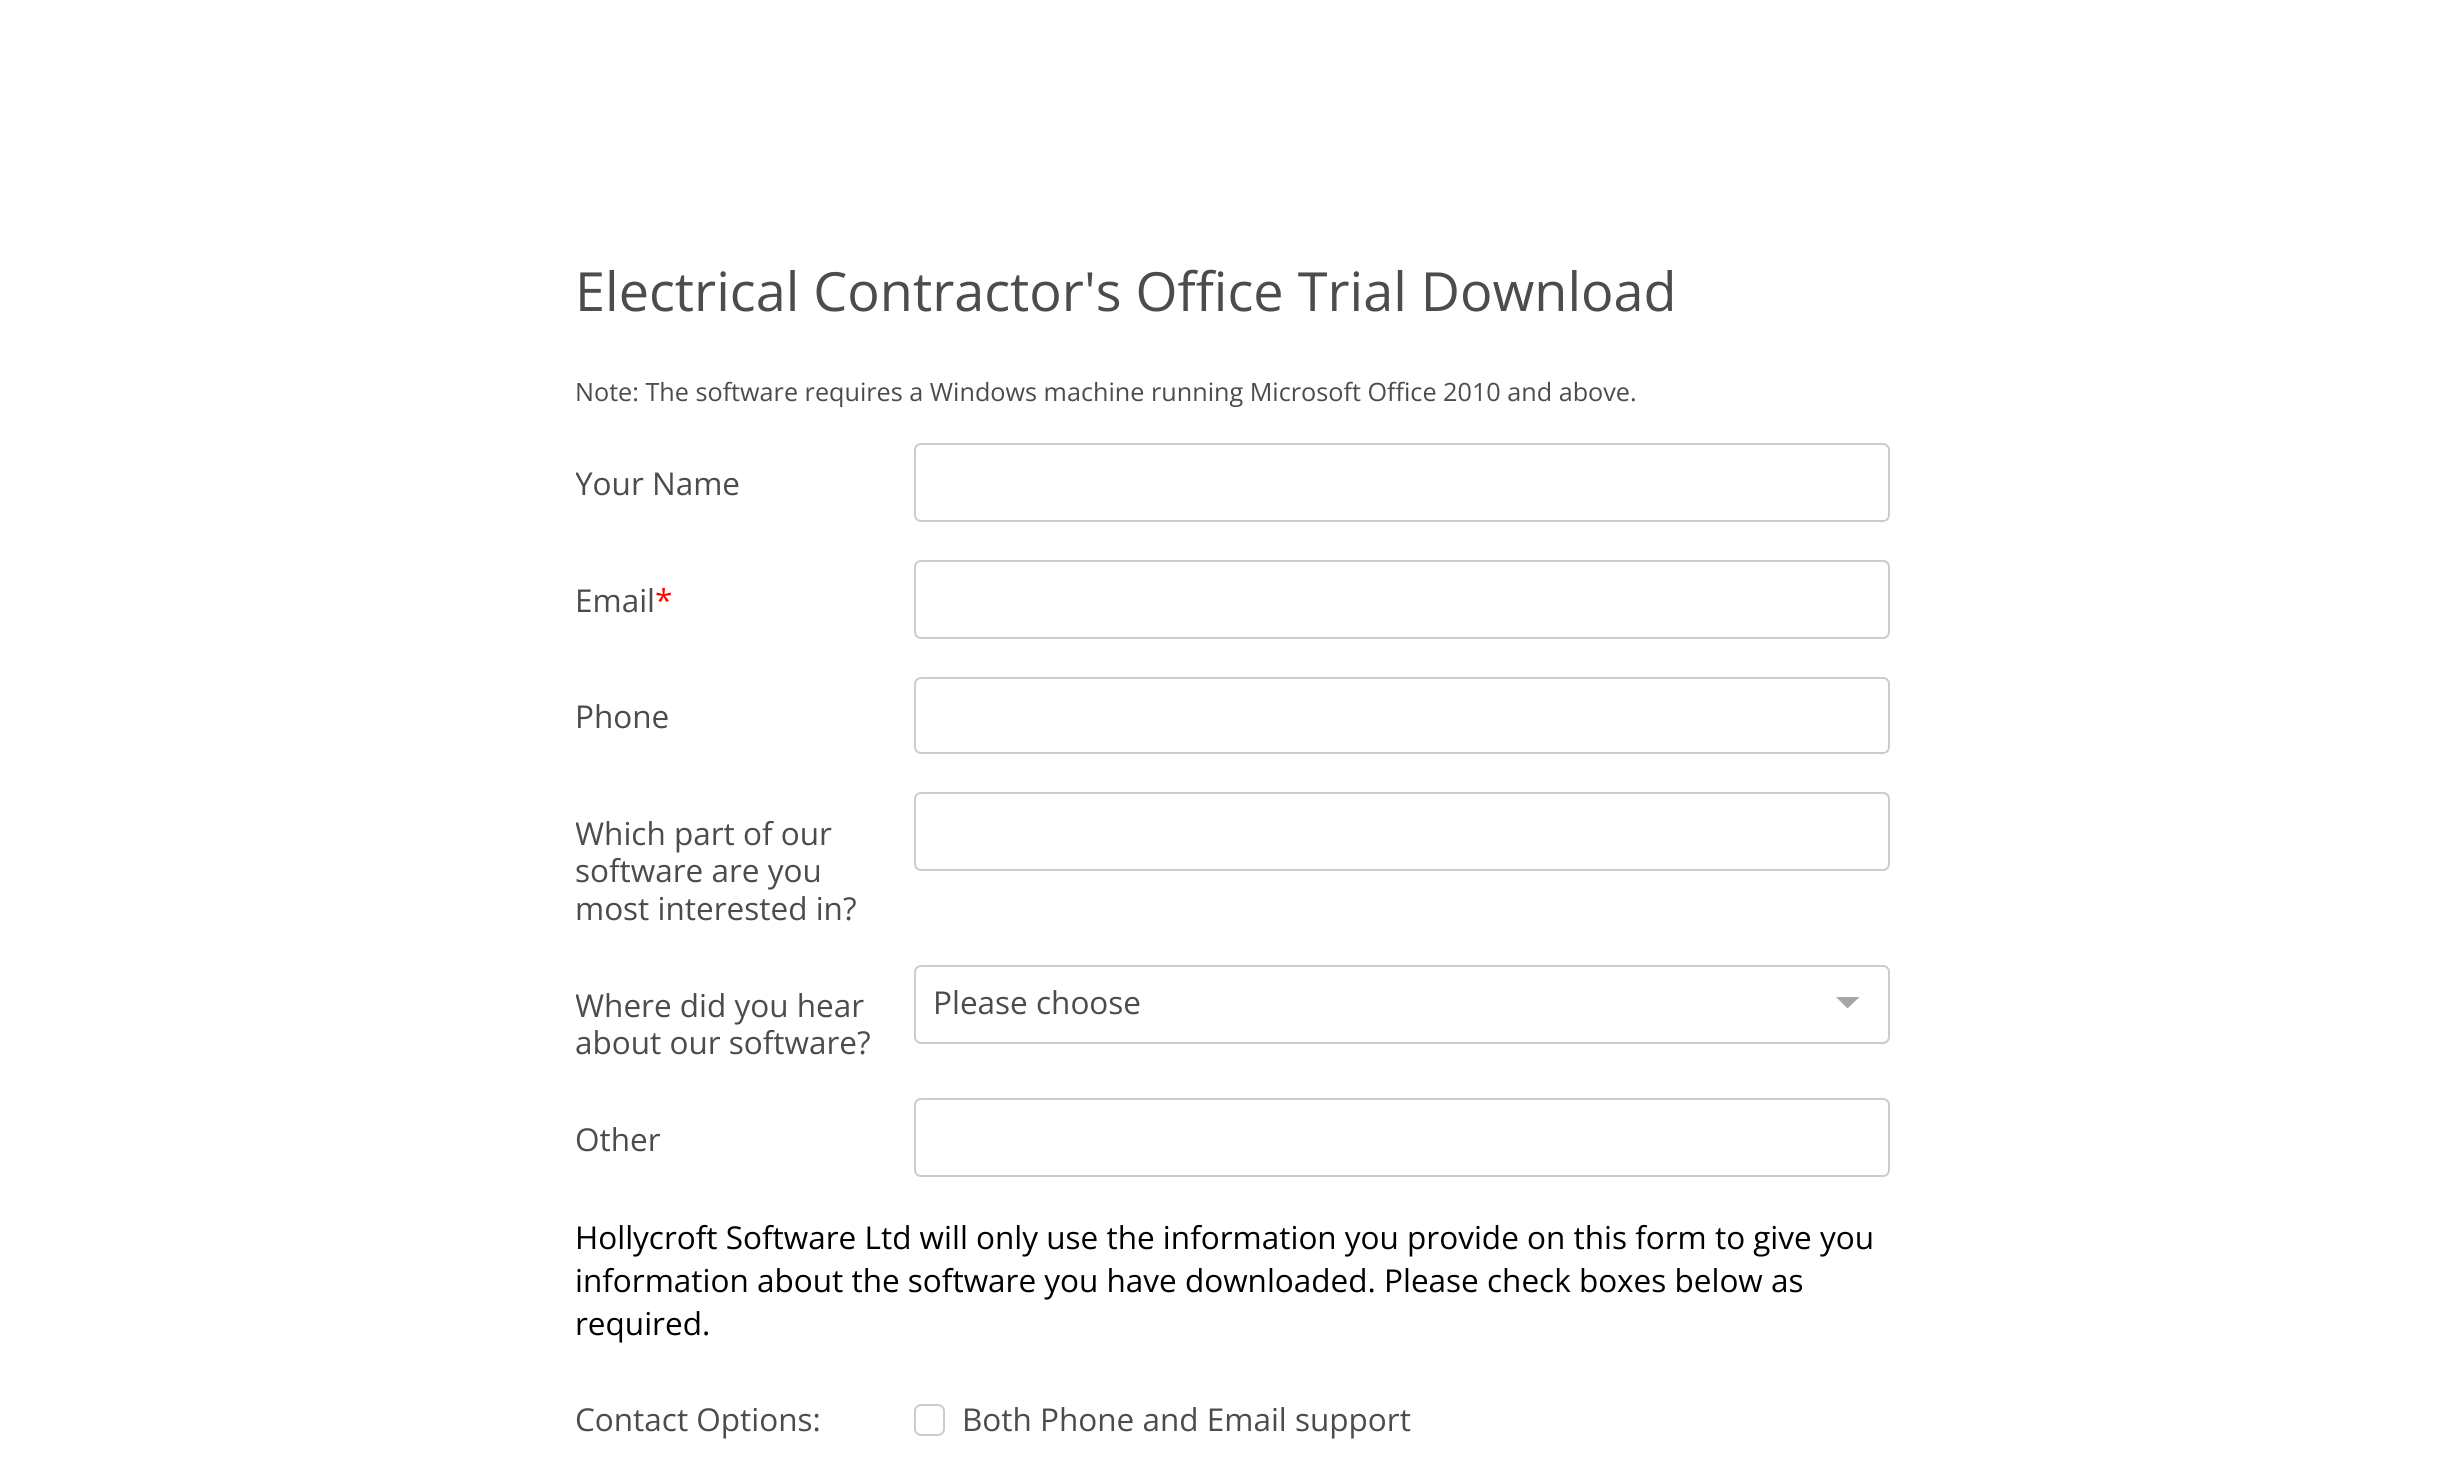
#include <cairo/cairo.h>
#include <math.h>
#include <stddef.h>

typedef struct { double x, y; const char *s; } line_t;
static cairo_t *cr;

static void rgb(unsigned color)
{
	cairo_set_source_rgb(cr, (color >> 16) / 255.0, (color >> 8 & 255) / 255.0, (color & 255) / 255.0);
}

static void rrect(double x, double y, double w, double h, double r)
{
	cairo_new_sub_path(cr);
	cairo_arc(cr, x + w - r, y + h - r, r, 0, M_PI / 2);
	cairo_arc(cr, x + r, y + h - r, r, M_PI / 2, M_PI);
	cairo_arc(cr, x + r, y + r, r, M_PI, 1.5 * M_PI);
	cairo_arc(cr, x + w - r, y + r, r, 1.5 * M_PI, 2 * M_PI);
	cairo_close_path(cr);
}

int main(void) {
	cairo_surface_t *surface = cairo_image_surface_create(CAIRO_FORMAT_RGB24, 2462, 1482);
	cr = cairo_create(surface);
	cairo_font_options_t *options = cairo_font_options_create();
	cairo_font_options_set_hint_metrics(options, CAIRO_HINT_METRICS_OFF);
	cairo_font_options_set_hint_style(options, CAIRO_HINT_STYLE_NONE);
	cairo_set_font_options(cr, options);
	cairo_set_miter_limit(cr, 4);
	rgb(0xffffff);
	cairo_paint(cr);
	rrect(915, 444, 974, 77, 6);
	rgb(0xcccccc);
	cairo_stroke(cr);
	rrect(915, 561, 974, 77, 6);
	cairo_stroke(cr);
	rrect(915, 678, 974, 75, 6);
	cairo_stroke(cr);
	rrect(915, 793, 974, 77, 6);
	cairo_stroke(cr);
	rrect(915, 966, 974, 77, 6);
	cairo_stroke(cr);
	rgb(0xa6a6a6);
	cairo_new_path(cr);
	cairo_move_to(cr, 1836, 997);
	cairo_line_to(cr, 1847.5, 1008.5);
	cairo_line_to(cr, 1859.5, 997);
	cairo_close_path(cr);
	cairo_fill(cr);
	rrect(915, 1099, 974, 77, 6);
	rgb(0xcccccc);
	cairo_stroke(cr);
	rrect(915, 1405, 29, 30, 6);
	cairo_stroke(cr);
	cairo_select_font_face(cr, "Open Sans", CAIRO_FONT_SLANT_NORMAL, CAIRO_FONT_WEIGHT_NORMAL);
	cairo_set_font_size(cr, 54);
	rgb(0x4c4c4c);
	cairo_move_to(cr, 575, 311);
	cairo_show_text(cr, "Electrical Contractor's Office Trial Download");
	cairo_set_font_size(cr, 25.2);
	cairo_move_to(cr, 575, 401);
	cairo_show_text(cr, "Note: The software requires a Windows machine running Microsoft Office 2010 and above.");
	cairo_save(cr);
	cairo_rectangle(cr, 576, 443, 302, 61);
	cairo_clip(cr);
	cairo_set_font_size(cr, 31.5);
	cairo_move_to(cr, 575, 495);
	cairo_show_text(cr, "Your Name");
	cairo_restore(cr);
	cairo_set_font_size(cr, 31.5);
	cairo_move_to(cr, 575, 612);
	cairo_show_text(cr, "Email");
	rgb(0xff0000);
	cairo_move_to(cr, 655, 612);
	cairo_show_text(cr, "*");
	rgb(0x4c4c4c);
	cairo_move_to(cr, 575, 728);
	cairo_show_text(cr, "Phone");
	cairo_save(cr);
	cairo_rectangle(cr, 576, 792, 302, 137);
	cairo_clip(cr);
	cairo_move_to(cr, 575, 845);
	cairo_show_text(cr, "Which part of our");
	cairo_restore(cr);
	cairo_move_to(cr, 575, 882);
	cairo_show_text(cr, "software are you");
	cairo_move_to(cr, 575, 920);
	cairo_show_text(cr, "most interested in?");
	cairo_save(cr);
	cairo_rectangle(cr, 576, 965, 302, 97);
	cairo_clip(cr);
	cairo_move_to(cr, 575, 1017);
	cairo_show_text(cr, "Where did you hear");
	cairo_restore(cr);
	{
		static const line_t items[] = {
			{575, 1054, "about our software?"},
			{933, 1014, "Please choose"},
			{575, 1151, "Other"},
		};
		for (size_t i = 0; i < sizeof items / sizeof *items; i++) {
			cairo_move_to(cr, items[i].x, items[i].y);
			cairo_show_text(cr, items[i].s);
		}
	}
	rgb(0x000000);
	{
		static const line_t items[] = {
			{575, 1249, "Hollycroft Software Ltd will only use the information you provide on this form to give you"},
			{575, 1292, "information about the software you have downloaded. Please check boxes below as"},
			{575, 1335, "required."},
		};
		for (size_t i = 0; i < sizeof items / sizeof *items; i++) {
			cairo_move_to(cr, items[i].x, items[i].y);
			cairo_show_text(cr, items[i].s);
		}
	}
	rgb(0x4c4c4c);
	cairo_move_to(cr, 575, 1431);
	cairo_show_text(cr, "Contact Options:");
	cairo_move_to(cr, 962, 1431);
	cairo_show_text(cr, "Both Phone and Email support");
	cairo_surface_write_to_png(surface, "page.png");
	cairo_font_options_destroy(options);
	cairo_destroy(cr);
	cairo_surface_destroy(surface);
	return 0;
}
